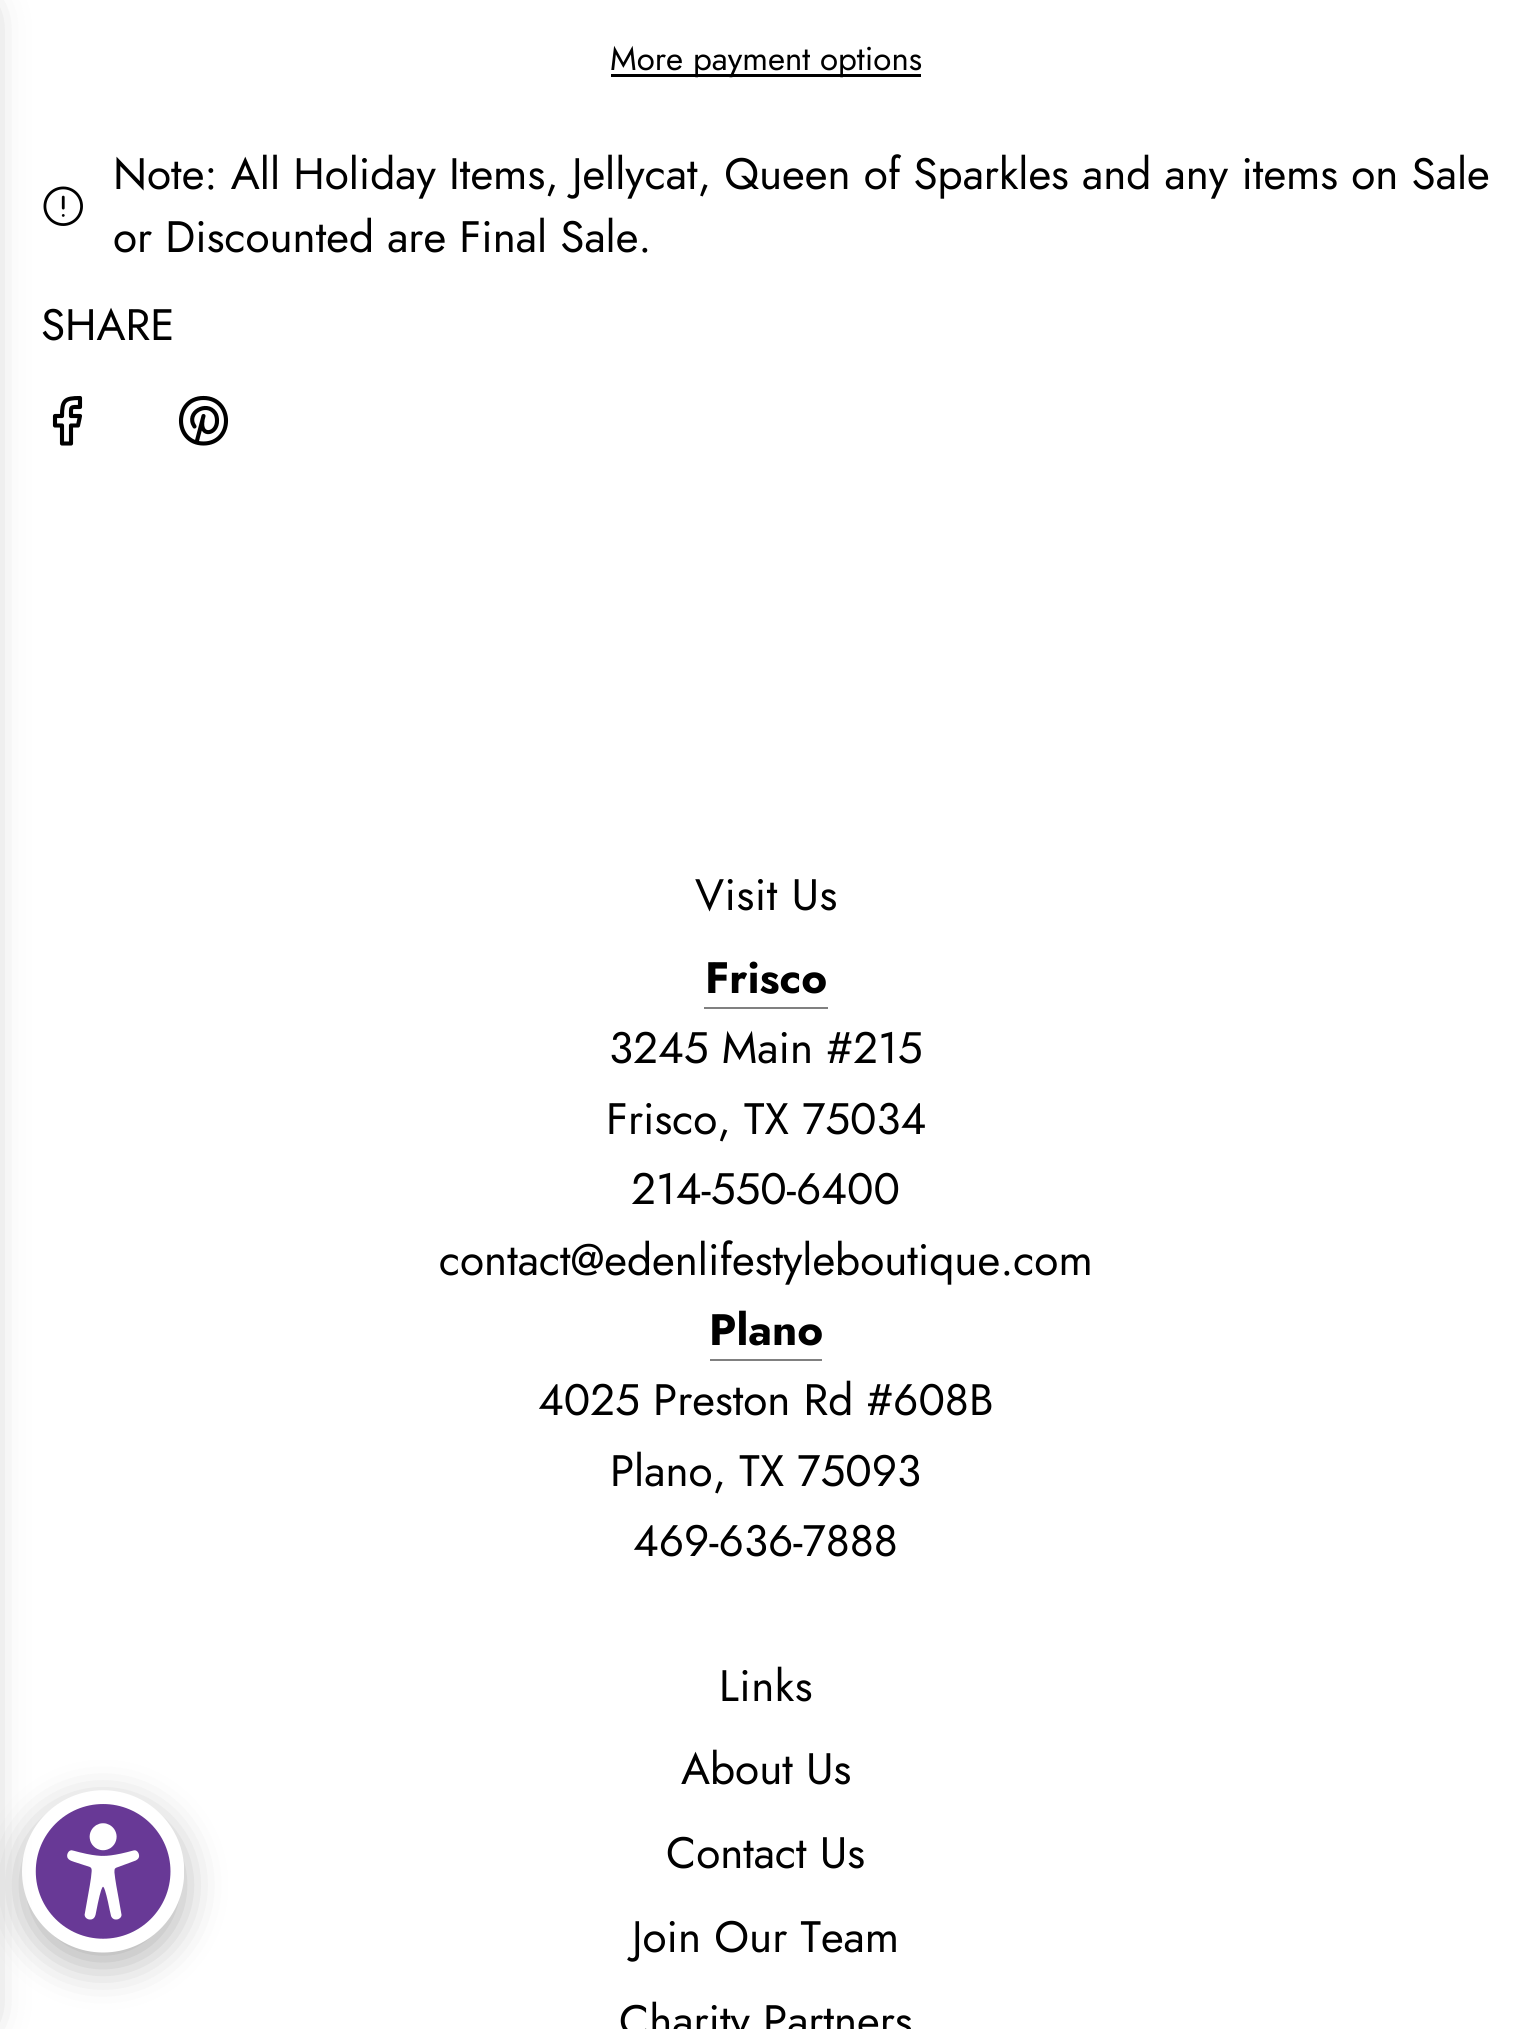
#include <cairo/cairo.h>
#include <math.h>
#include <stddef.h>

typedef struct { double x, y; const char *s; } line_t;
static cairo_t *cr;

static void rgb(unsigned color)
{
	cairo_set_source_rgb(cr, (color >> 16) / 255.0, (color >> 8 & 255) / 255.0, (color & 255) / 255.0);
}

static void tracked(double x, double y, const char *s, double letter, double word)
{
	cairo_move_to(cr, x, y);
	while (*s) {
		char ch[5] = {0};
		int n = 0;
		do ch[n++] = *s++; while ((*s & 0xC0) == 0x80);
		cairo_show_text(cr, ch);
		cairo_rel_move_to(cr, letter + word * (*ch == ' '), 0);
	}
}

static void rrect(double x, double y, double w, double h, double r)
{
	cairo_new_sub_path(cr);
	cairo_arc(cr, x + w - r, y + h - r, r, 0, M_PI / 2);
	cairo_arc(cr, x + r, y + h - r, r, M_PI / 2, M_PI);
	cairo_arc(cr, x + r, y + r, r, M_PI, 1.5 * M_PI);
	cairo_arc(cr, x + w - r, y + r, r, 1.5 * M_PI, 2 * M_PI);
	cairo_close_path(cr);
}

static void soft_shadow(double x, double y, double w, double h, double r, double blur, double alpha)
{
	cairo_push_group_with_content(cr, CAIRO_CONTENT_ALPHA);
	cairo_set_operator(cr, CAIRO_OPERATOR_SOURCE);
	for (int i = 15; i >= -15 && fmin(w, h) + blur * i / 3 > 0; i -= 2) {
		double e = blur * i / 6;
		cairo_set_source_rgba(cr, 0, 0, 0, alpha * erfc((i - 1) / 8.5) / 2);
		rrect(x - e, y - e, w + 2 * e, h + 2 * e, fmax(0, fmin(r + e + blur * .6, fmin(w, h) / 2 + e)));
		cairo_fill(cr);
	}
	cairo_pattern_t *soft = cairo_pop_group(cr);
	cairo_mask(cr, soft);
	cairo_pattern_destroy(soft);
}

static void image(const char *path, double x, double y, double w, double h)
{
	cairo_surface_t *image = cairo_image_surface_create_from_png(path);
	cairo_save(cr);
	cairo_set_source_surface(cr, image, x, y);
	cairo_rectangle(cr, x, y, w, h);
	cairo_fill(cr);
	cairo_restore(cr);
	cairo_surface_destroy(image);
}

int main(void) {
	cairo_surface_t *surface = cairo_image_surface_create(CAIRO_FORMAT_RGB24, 1531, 2029);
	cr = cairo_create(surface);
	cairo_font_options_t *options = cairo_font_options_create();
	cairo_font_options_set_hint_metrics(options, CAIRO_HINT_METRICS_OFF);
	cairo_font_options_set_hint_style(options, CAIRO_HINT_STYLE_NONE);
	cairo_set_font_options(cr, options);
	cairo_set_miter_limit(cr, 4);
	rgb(0xffffff);
	cairo_paint(cr);
	rgb(0x000000);
	soft_shadow(22, 1804, 162, 162, 81, 20.5, 0.3);
	image("img/1.png", 22, 1790, 162, 163);
	image("img/2.png", 43, 186, 40, 40);
	soft_shadow(-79, 0, 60, 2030, 17, 20.5, 0.4);
	rgb(0x000000);
	cairo_rectangle(cr, 611, 74, 310, 3);
	cairo_fill(cr);
	cairo_new_path(cr);
	cairo_move_to(cr, 80, 398);
	cairo_curve_to(cr, 64.5, 398, 62, 400.5, 62, 416);
	cairo_line_to(cr, 55, 416);
	cairo_line_to(cr, 55, 425.5);
	cairo_line_to(cr, 62, 425.5);
	cairo_line_to(cr, 62, 443.5);
	cairo_line_to(cr, 71, 443.5);
	cairo_line_to(cr, 71, 425.5);
	cairo_line_to(cr, 78, 425.5);
	cairo_line_to(cr, 80, 416);
	cairo_line_to(cr, 71, 416);
	cairo_curve_to(cr, 71, 406, 70, 407, 80, 407);
	cairo_close_path(cr);
	cairo_set_line_width(cr, 4.1);
	cairo_set_line_cap(cr, CAIRO_LINE_CAP_ROUND);
	cairo_set_line_join(cr, CAIRO_LINE_JOIN_ROUND);
	cairo_stroke(cr);
	cairo_new_path(cr);
	cairo_move_to(cr, 194.5, 426.5);
	cairo_curve_to(cr, 185, 412.5, 207, 401, 215, 413);
	cairo_curve_to(cr, 216.5, 415, 217, 418, 217, 420.5);
	cairo_curve_to(cr, 217.5, 434.5, 199.5, 437.5, 202.5, 420.5);
	cairo_move_to(cr, 203.5, 416);
	cairo_line_to(cr, 196.5, 442.5);
	cairo_move_to(cr, 203.5, 443.5);
	cairo_curve_to(cr, 233.5, 443.5, 233.5, 398, 203.5, 398);
	cairo_curve_to(cr, 173.5, 398, 173.5, 443.5, 203.5, 443.5);
	cairo_close_path(cr);
	cairo_stroke(cr);
	rgb(0x808080);
	cairo_rectangle(cr, 704, 1007, 124, 2);
	cairo_fill(cr);
	cairo_rectangle(cr, 710, 1359, 112, 2);
	cairo_fill(cr);
	cairo_select_font_face(cr, "Jost", CAIRO_FONT_SLANT_NORMAL, CAIRO_FONT_WEIGHT_NORMAL);
	cairo_set_font_size(cr, 33);
	rgb(0x000000);
	cairo_move_to(cr, 610, 70);
	cairo_show_text(cr, "More payment options");
	cairo_set_font_size(cr, 44);
	{
		static const line_t items[] = {
			{113, 189, "Note: All Holiday Items, Jellycat, Queen of Sparkles and any items on Sale"},
			{113, 252, "or Discounted are Final Sale."},
			{41, 340, "SHARE"},
		};
		for (size_t i = 0; i < sizeof items / sizeof *items; i++) {
			cairo_move_to(cr, items[i].x, items[i].y);
			cairo_show_text(cr, items[i].s);
		}
	}
	tracked(695, 910, "Visit Us", 0.5, 0);
	cairo_select_font_face(cr, "Jost", CAIRO_FONT_SLANT_NORMAL, CAIRO_FONT_WEIGHT_BOLD);
	cairo_move_to(cr, 705, 993);
	cairo_show_text(cr, "Frisco");
	cairo_select_font_face(cr, "Jost", CAIRO_FONT_SLANT_NORMAL, CAIRO_FONT_WEIGHT_NORMAL);
	{
		static const line_t items[] = {
			{609, 1063, "3245 Main #215"},
			{606, 1134, "Frisco, TX 75034"},
			{631, 1204, "214-550-6400"},
			{439, 1275, "contact@edenlifestyleboutique.com"},
		};
		for (size_t i = 0; i < sizeof items / sizeof *items; i++) {
			cairo_move_to(cr, items[i].x, items[i].y);
			cairo_show_text(cr, items[i].s);
		}
	}
	cairo_select_font_face(cr, "Jost", CAIRO_FONT_SLANT_NORMAL, CAIRO_FONT_WEIGHT_BOLD);
	cairo_move_to(cr, 709, 1345);
	cairo_show_text(cr, "Plano");
	cairo_select_font_face(cr, "Jost", CAIRO_FONT_SLANT_NORMAL, CAIRO_FONT_WEIGHT_NORMAL);
	{
		static const line_t items[] = {
			{538, 1415, "4025 Preston Rd #608B"},
			{610, 1486, "Plano, TX 75093"},
			{633, 1556, "469-636-7888"},
		};
		for (size_t i = 0; i < sizeof items / sizeof *items; i++) {
			cairo_move_to(cr, items[i].x, items[i].y);
			cairo_show_text(cr, items[i].s);
		}
	}
	tracked(719, 1701, "Links", 0.5, 0);
	{
		static const line_t items[] = {
			{681, 1784, "About Us"},
			{666, 1868, "Contact Us"},
			{632, 1952, "Join Our Team"},
			{619, 2036, "Charity Partners"},
		};
		for (size_t i = 0; i < sizeof items / sizeof *items; i++) {
			cairo_move_to(cr, items[i].x, items[i].y);
			cairo_show_text(cr, items[i].s);
		}
	}
	cairo_surface_write_to_png(surface, "page.png");
	cairo_font_options_destroy(options);
	cairo_destroy(cr);
	cairo_surface_destroy(surface);
	return 0;
}
